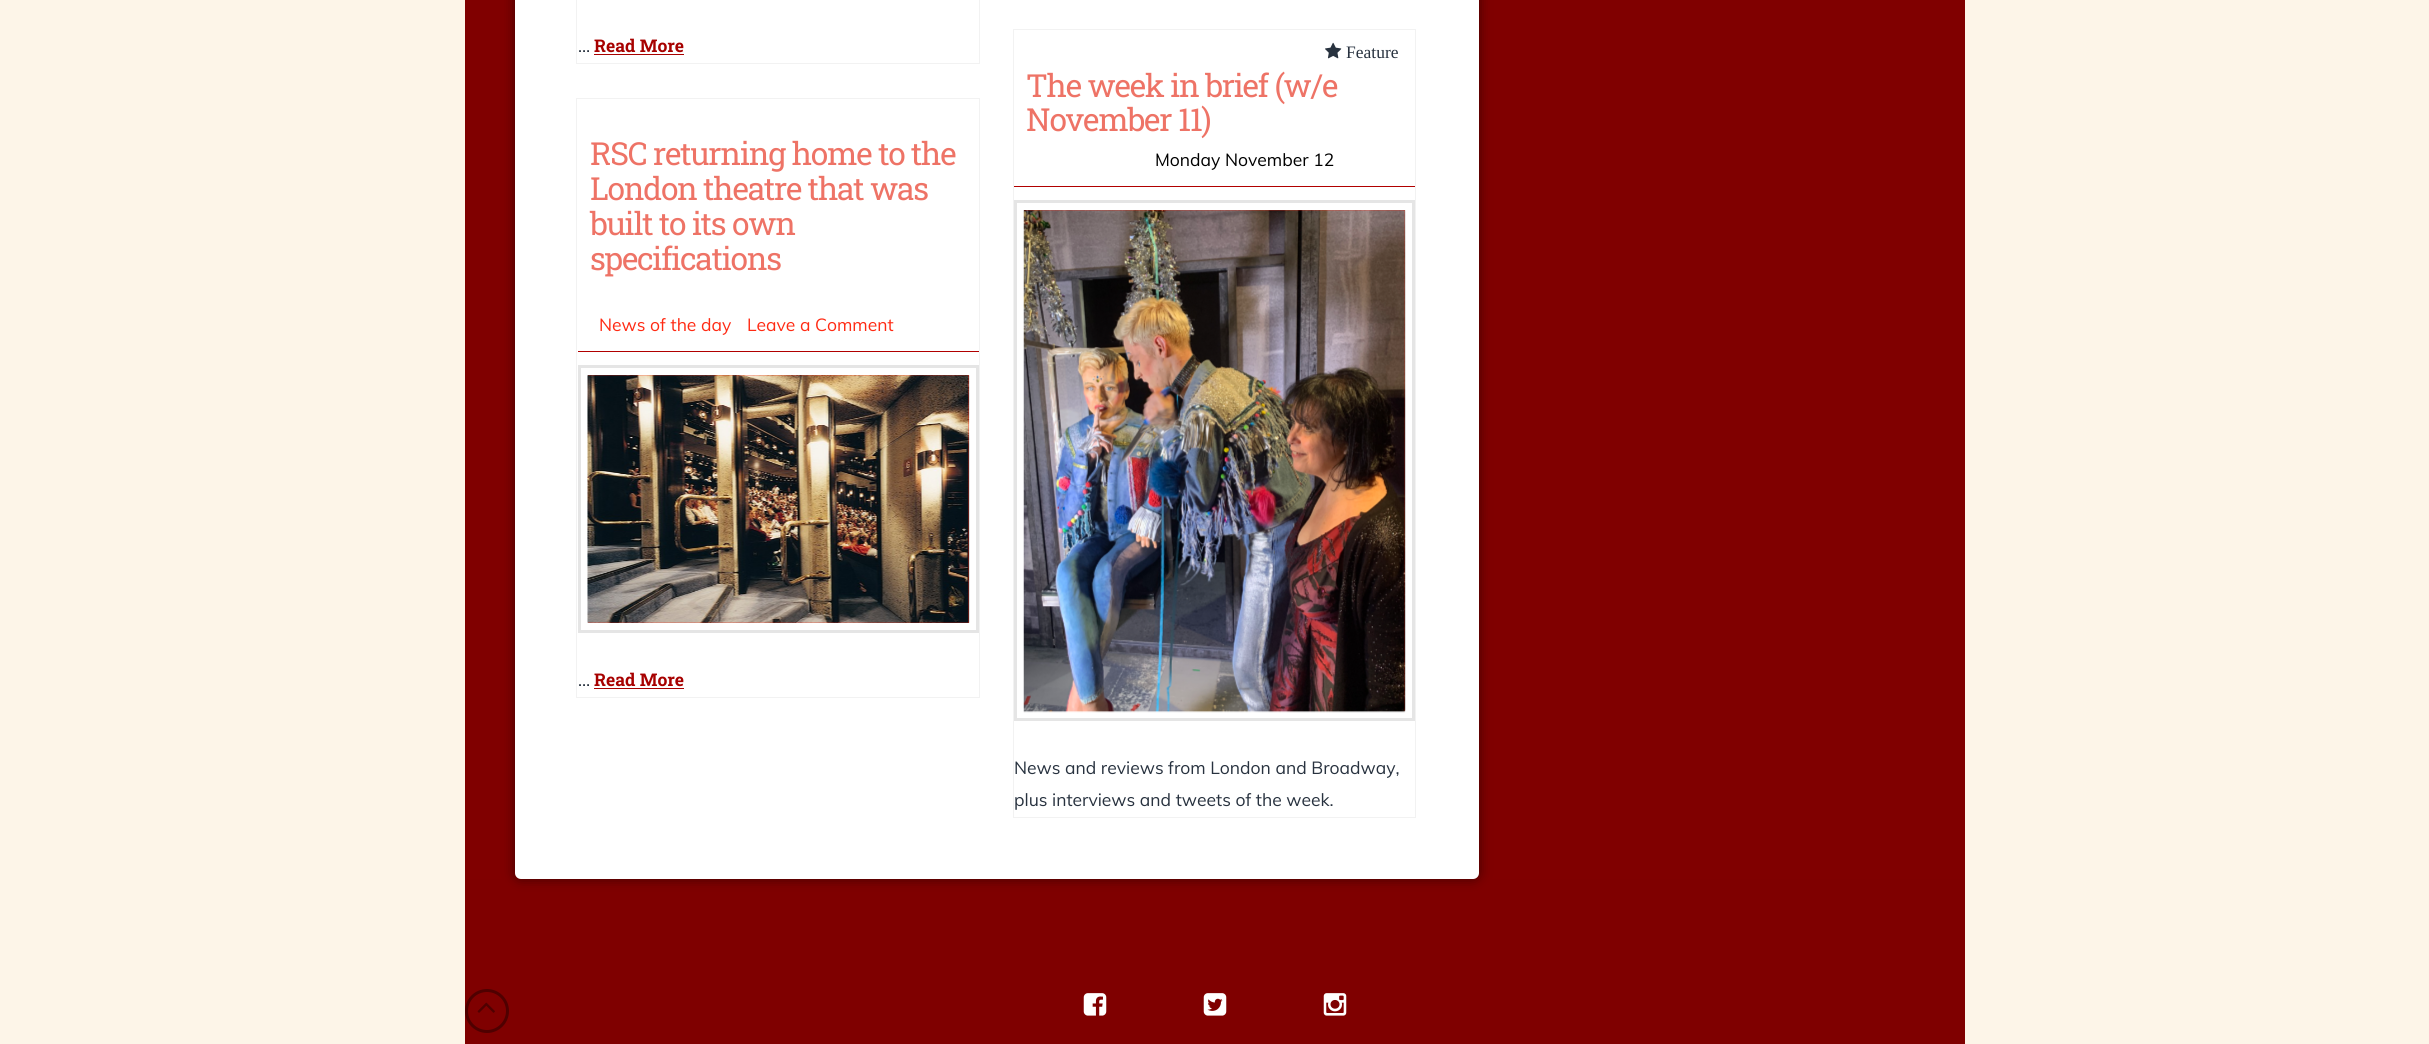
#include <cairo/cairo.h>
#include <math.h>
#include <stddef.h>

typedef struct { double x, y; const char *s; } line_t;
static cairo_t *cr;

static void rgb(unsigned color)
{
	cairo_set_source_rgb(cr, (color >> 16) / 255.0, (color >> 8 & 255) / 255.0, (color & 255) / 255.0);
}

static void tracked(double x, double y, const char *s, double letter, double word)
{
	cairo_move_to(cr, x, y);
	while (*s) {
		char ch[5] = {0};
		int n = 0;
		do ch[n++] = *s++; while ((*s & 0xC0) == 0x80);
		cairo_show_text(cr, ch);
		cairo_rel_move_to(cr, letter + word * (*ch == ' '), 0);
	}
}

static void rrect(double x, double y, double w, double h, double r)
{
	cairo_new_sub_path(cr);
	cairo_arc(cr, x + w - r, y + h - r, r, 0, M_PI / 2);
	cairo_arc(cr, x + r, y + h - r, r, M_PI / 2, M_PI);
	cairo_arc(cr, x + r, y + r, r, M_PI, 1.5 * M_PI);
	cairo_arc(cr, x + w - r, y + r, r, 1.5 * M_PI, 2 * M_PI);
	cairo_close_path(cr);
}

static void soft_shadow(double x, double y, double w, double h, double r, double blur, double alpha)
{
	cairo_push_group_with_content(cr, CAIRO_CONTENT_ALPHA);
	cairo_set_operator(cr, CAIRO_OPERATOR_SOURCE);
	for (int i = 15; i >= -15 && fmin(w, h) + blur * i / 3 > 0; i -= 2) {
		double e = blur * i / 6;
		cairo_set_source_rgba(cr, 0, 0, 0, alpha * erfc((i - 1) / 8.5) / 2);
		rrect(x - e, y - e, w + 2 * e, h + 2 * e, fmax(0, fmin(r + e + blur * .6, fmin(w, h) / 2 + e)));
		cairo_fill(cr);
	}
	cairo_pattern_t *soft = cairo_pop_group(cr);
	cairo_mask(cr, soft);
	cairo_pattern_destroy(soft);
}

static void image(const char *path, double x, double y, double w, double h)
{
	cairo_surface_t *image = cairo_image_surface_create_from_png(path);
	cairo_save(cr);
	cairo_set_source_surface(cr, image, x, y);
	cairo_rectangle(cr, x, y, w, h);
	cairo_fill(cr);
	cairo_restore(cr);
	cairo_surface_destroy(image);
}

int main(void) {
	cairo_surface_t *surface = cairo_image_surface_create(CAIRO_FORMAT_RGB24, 2429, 1044);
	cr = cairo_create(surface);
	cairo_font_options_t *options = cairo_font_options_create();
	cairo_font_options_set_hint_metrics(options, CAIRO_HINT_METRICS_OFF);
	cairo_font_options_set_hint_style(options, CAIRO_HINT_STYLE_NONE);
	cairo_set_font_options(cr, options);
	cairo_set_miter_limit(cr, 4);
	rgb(0xfdf5e8);
	cairo_paint(cr);
	rgb(0x800000);
	cairo_rectangle(cr, 465, 0, 1500, 879);
	cairo_fill(cr);
	rgb(0x7f0000);
	cairo_rectangle(cr, 465, 879, 1500, 165);
	cairo_fill(cr);
	rgb(0x000000);
	soft_shadow(515, -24, 964, 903, 6, 6, 0.5);
	rgb(0xffffff);
	rrect(515, -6, 964, 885, 6);
	cairo_fill(cr);
	cairo_rectangle(cr, 576.5, -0.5, 403, 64);
	rgb(0xf2f2f2);
	cairo_set_line_width(cr, 1);
	cairo_stroke(cr);
	rgb(0xa70100);
	cairo_rectangle(cr, 594, 54, 90, 1);
	cairo_fill(cr);
	cairo_rectangle(cr, 1013.5, 29.5, 402, 788);
	rgb(0xf2f2f2);
	cairo_stroke(cr);
	rgb(0xb10000);
	cairo_rectangle(cr, 1014, 186, 401, 1);
	cairo_fill(cr);
	image("img/1.png", 1325, 42, 17, 17);
	cairo_rectangle(cr, 1015.5, 201.5, 398, 518);
	rgb(0xe5e5e5);
	cairo_set_line_width(cr, 3);
	cairo_stroke(cr);
	rgb(0xff2a13);
	cairo_rectangle(cr, 1024, 210, 381, 501);
	cairo_fill(cr);
	image("img/2.png", 1023, 210, 383, 503);
	cairo_rectangle(cr, 576.5, 98.5, 403, 599);
	rgb(0xf2f2f2);
	cairo_set_line_width(cr, 1);
	cairo_stroke(cr);
	rgb(0xb10000);
	cairo_rectangle(cr, 578, 351, 401, 1);
	cairo_fill(cr);
	cairo_rectangle(cr, 579.5, 366.5, 398, 265);
	rgb(0xe5e5e5);
	cairo_set_line_width(cr, 3);
	cairo_stroke(cr);
	rgb(0xff2a13);
	cairo_rectangle(cr, 588, 375, 381, 248);
	cairo_fill(cr);
	image("img/3.png", 587, 375, 383, 248);
	rgb(0xa70100);
	cairo_rectangle(cr, 594, 688, 90, 1);
	cairo_fill(cr);
	image("img/4.png", 1083, 993, 24, 23);
	image("img/5.png", 1203, 993, 24, 23);
	image("img/6.png", 1323, 993, 24, 23);
	cairo_arc(cr, 487, 1011, 20.5, 0, 2 * M_PI);
	rgb(0x4f0000);
	cairo_stroke(cr);
	image("img/7.png", 477, 1002, 18, 11);
	cairo_select_font_face(cr, "Muli", CAIRO_FONT_SLANT_NORMAL, CAIRO_FONT_WEIGHT_NORMAL);
	cairo_set_font_size(cr, 17.5);
	rgb(0x28323f);
	cairo_move_to(cr, 578, 52);
	cairo_show_text(cr, "…");
	cairo_select_font_face(cr, "Roboto Slab", CAIRO_FONT_SLANT_NORMAL, CAIRO_FONT_WEIGHT_BOLD);
	rgb(0xa70100);
	cairo_move_to(cr, 594, 52);
	cairo_show_text(cr, "Read More");
	cairo_select_font_face(cr, "Liberation Serif", CAIRO_FONT_SLANT_NORMAL, CAIRO_FONT_WEIGHT_NORMAL);
	rgb(0x28323f);
	cairo_move_to(cr, 1346, 58);
	cairo_show_text(cr, "Feature");
	cairo_select_font_face(cr, "Roboto Slab", CAIRO_FONT_SLANT_NORMAL, CAIRO_FONT_WEIGHT_NORMAL);
	cairo_set_font_size(cr, 31.75);
	rgb(0xee7366);
	tracked(1026, 97, "The week in brief (w/e", -1.25, 0);
	tracked(1026, 131, "November 11)", -1.25, 0);
	cairo_select_font_face(cr, "Muli", CAIRO_FONT_SLANT_NORMAL, CAIRO_FONT_WEIGHT_NORMAL);
	cairo_set_font_size(cr, 17.5);
	rgb(0x000000);
	cairo_move_to(cr, 1155, 166);
	cairo_show_text(cr, "Monday November 12");
	rgb(0x28323f);
	cairo_move_to(cr, 1014, 774);
	cairo_show_text(cr, "News and reviews from London and Broadway,");
	cairo_move_to(cr, 1014, 806);
	cairo_show_text(cr, "plus interviews and tweets of the week.");
	cairo_select_font_face(cr, "Roboto Slab", CAIRO_FONT_SLANT_NORMAL, CAIRO_FONT_WEIGHT_NORMAL);
	cairo_set_font_size(cr, 31.75);
	rgb(0xee7366);
	{
		static const line_t items[] = {
			{590, 165, "RSC returning home to the"},
			{590, 200, "London theatre that was"},
			{590, 235, "built to its own"},
			{590, 270, "specifications"},
		};
		for (size_t i = 0; i < sizeof items / sizeof *items; i++) {
			tracked(items[i].x, items[i].y, items[i].s, -1.25, 0);
		}
	}
	cairo_select_font_face(cr, "Muli", CAIRO_FONT_SLANT_NORMAL, CAIRO_FONT_WEIGHT_NORMAL);
	cairo_set_font_size(cr, 17.5);
	rgb(0xff2a13);
	cairo_move_to(cr, 599, 331);
	cairo_show_text(cr, "News of the day");
	cairo_move_to(cr, 747, 331);
	cairo_show_text(cr, "Leave a Comment");
	rgb(0x28323f);
	cairo_move_to(cr, 578, 686);
	cairo_show_text(cr, "…");
	cairo_select_font_face(cr, "Roboto Slab", CAIRO_FONT_SLANT_NORMAL, CAIRO_FONT_WEIGHT_BOLD);
	rgb(0xa70100);
	cairo_move_to(cr, 594, 686);
	cairo_show_text(cr, "Read More");
	cairo_surface_write_to_png(surface, "page.png");
	cairo_font_options_destroy(options);
	cairo_destroy(cr);
	cairo_surface_destroy(surface);
	return 0;
}
